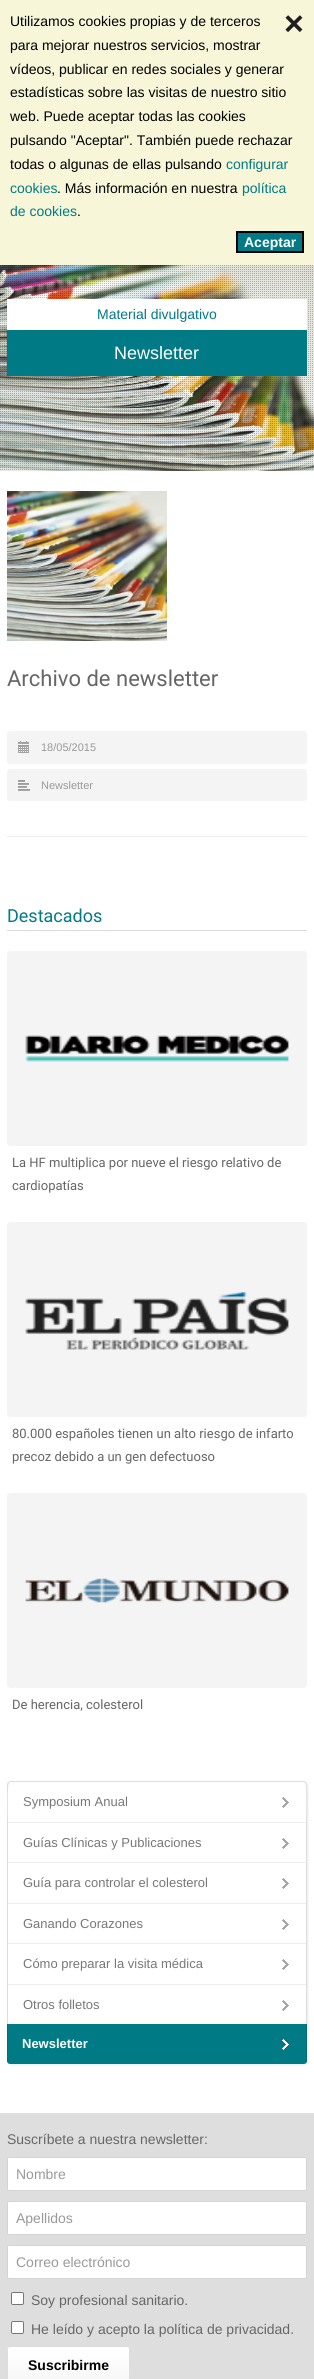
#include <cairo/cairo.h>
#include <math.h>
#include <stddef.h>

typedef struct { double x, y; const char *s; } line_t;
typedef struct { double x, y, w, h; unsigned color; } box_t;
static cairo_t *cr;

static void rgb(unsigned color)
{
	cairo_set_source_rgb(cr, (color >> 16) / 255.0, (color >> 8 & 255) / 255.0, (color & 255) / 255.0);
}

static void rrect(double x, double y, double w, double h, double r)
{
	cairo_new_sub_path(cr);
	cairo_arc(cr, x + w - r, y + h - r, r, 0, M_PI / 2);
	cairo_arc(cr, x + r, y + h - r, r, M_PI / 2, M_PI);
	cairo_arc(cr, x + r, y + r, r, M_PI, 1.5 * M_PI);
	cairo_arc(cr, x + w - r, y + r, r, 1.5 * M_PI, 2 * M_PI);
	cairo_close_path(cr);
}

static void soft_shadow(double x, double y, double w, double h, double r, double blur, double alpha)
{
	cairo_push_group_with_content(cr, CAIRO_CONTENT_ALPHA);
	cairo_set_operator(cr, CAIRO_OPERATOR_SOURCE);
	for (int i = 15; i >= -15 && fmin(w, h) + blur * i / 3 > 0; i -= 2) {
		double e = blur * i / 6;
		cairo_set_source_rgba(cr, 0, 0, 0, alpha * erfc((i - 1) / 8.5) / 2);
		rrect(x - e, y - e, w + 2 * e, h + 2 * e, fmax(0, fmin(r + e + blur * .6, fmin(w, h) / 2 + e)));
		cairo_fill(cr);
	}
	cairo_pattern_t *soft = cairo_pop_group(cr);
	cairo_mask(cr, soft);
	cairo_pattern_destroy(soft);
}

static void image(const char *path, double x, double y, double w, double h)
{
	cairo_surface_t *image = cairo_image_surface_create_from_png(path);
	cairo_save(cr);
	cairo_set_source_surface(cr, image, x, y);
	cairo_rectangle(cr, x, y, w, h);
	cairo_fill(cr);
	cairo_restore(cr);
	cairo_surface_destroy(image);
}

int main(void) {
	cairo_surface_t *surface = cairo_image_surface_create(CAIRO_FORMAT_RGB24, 314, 2379);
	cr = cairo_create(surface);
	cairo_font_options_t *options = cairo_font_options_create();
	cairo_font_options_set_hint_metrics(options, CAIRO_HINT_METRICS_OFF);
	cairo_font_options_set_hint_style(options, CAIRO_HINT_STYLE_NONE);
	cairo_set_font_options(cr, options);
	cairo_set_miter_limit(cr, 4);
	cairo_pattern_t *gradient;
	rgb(0xffffff);
	cairo_paint(cr);
	rgb(0xf7f6d9);
	cairo_rectangle(cr, 0, 0, 314, 265);
	cairo_fill(cr);
	rgb(0x007a85);
	cairo_rectangle(cr, 237, 232, 66, 20);
	cairo_fill_preserve(cr);
	rgb(0x000000);
	cairo_stroke(cr);
	image("img/1.png", 0, 265, 314, 206);
	image("img/2.png", 0, 265, 313, 205);
	{
		static const box_t items[] = {
			{7, 299, 300, 31, 0xffffff},
			{7, 330, 300, 46, 0x007a85},
			{7, 836, 300, 1, 0xefefef},
		};
		for (size_t i = 0; i < sizeof items / sizeof *items; i++) {
			rgb(items[i].color);
			cairo_rectangle(cr, items[i].x, items[i].y, items[i].w, items[i].h);
			cairo_fill(cr);
		}
	}
	image("img/3.png", 7, 491, 160, 150);
	rgb(0xf4f4f4);
	rrect(7, 731, 300, 33, 3);
	cairo_fill(cr);
	image("img/4.png", 18, 741, 11, 12);
	rrect(7, 769, 300, 32, 3);
	cairo_fill(cr);
	image("img/5.png", 18, 780, 12, 11);
	rgb(0xdddddd);
	cairo_rectangle(cr, 7, 930, 300, 1);
	cairo_fill(cr);
	image("img/6.png", 7, 951, 300, 195);
	image("img/7.png", 7, 1222, 300, 195);
	image("img/8.png", 7, 1493, 300, 195);
	rgb(0x000000);
	soft_shadow(8, 1782, 300, 283, 3, 1, 0.08);
	rgb(0xffffff);
	rrect(7, 1781, 300, 283, 3);
	cairo_fill(cr);
	image("img/9.png", 282, 1797, 7, 11);
	rgb(0xdddddd);
	cairo_new_path(cr);
	cairo_move_to(cr, 10, 1781);
	cairo_line_to(cr, 8, 1782);
	cairo_line_to(cr, 9, 1783);
	cairo_line_to(cr, 10, 1782);
	cairo_line_to(cr, 304, 1782);
	cairo_line_to(cr, 305, 1783);
	cairo_line_to(cr, 306, 1782);
	cairo_line_to(cr, 304, 1781);
	cairo_close_path(cr);
	cairo_fill(cr);
	cairo_new_path(cr);
	cairo_move_to(cr, 307, 1823);
	cairo_curve_to(cr, 307, 1818, 308, 1784, 306, 1782);
	cairo_line_to(cr, 305, 1783);
	cairo_curve_to(cr, 307, 1784, 306, 1817, 306, 1822);
	cairo_close_path(cr);
	cairo_fill(cr);
	cairo_new_path(cr);
	cairo_move_to(cr, 7, 1823);
	cairo_line_to(cr, 8, 1822);
	cairo_curve_to(cr, 8, 1817, 7, 1784, 9, 1783);
	cairo_line_to(cr, 8, 1782);
	cairo_line_to(cr, 7, 1784);
	cairo_close_path(cr);
	cairo_fill(cr);
	image("img/9.png", 282, 1838, 7, 11);
	{
		static const box_t items[] = {
			{7, 1822, 300, 1, 0xefefef},
			{306, 1822, 1, 41, 0xdddddd},
			{7, 1822, 1, 41, 0xdddddd},
		};
		for (size_t i = 0; i < sizeof items / sizeof *items; i++) {
			rgb(items[i].color);
			cairo_rectangle(cr, items[i].x, items[i].y, items[i].w, items[i].h);
			cairo_fill(cr);
		}
	}
	image("img/9.png", 282, 1878, 7, 11);
	{
		static const box_t items[] = {
			{7, 1862, 300, 1, 0xefefef},
			{306, 1862, 1, 42, 0xdddddd},
			{7, 1862, 1, 42, 0xdddddd},
		};
		for (size_t i = 0; i < sizeof items / sizeof *items; i++) {
			rgb(items[i].color);
			cairo_rectangle(cr, items[i].x, items[i].y, items[i].w, items[i].h);
			cairo_fill(cr);
		}
	}
	image("img/9.png", 282, 1919, 7, 11);
	{
		static const box_t items[] = {
			{7, 1903, 300, 1, 0xefefef},
			{306, 1903, 1, 41, 0xdddddd},
			{7, 1903, 1, 41, 0xdddddd},
		};
		for (size_t i = 0; i < sizeof items / sizeof *items; i++) {
			rgb(items[i].color);
			cairo_rectangle(cr, items[i].x, items[i].y, items[i].w, items[i].h);
			cairo_fill(cr);
		}
	}
	image("img/9.png", 282, 1959, 7, 11);
	{
		static const box_t items[] = {
			{7, 1943, 300, 1, 0xefefef},
			{306, 1943, 1, 42, 0xdddddd},
			{7, 1943, 1, 42, 0xdddddd},
		};
		for (size_t i = 0; i < sizeof items / sizeof *items; i++) {
			rgb(items[i].color);
			cairo_rectangle(cr, items[i].x, items[i].y, items[i].w, items[i].h);
			cairo_fill(cr);
		}
	}
	image("img/9.png", 282, 2000, 7, 11);
	{
		static const box_t items[] = {
			{7, 1984, 300, 1, 0xefefef},
			{306, 1984, 1, 41, 0xdddddd},
			{7, 1984, 1, 41, 0xdddddd},
		};
		for (size_t i = 0; i < sizeof items / sizeof *items; i++) {
			rgb(items[i].color);
			cairo_rectangle(cr, items[i].x, items[i].y, items[i].w, items[i].h);
			cairo_fill(cr);
		}
	}
	rgb(0x007a85);
	cairo_new_path(cr);
	cairo_move_to(cr, 7, 2024);
	cairo_line_to(cr, 307, 2024);
	cairo_line_to(cr, 307, 2061);
	cairo_curve_to(cr, 307, 2062.5, 305.5, 2064, 304, 2064);
	cairo_line_to(cr, 10, 2064);
	cairo_curve_to(cr, 8.5, 2064, 7, 2062.5, 7, 2061);
	cairo_close_path(cr);
	cairo_fill(cr);
	image("img/10.png", 282, 2039, 7, 11);
	cairo_set_source_rgba(cr, 0, 0, 0, 0.1);
	cairo_new_path(cr);
	cairo_move_to(cr, 303, 2064);
	cairo_line_to(cr, 304, 2064);
	cairo_curve_to(cr, 306, 2064, 307, 2063, 307, 2061);
	cairo_line_to(cr, 307, 2024);
	cairo_line_to(cr, 306, 2024);
	cairo_line_to(cr, 306, 2061);
	cairo_curve_to(cr, 306, 2063, 305, 2064, 303, 2064);
	cairo_close_path(cr);
	cairo_fill(cr);
	cairo_new_path(cr);
	cairo_move_to(cr, 7, 2024);
	cairo_line_to(cr, 7, 2061);
	cairo_curve_to(cr, 7, 2063, 8, 2064, 10, 2064);
	cairo_line_to(cr, 11, 2064);
	cairo_curve_to(cr, 9, 2064, 8, 2063, 8, 2061);
	cairo_line_to(cr, 8, 2024);
	cairo_close_path(cr);
	cairo_fill(cr);
	rgb(0xdedede);
	cairo_rectangle(cr, 0, 2113, 314, 266);
	cairo_fill(cr);
	rgb(0xffffff);
	rrect(7.5, 2157.5, 299, 33, 1.5);
	cairo_fill_preserve(cr);
	rgb(0xd4d4d4);
	cairo_set_line_width(cr, 1);
	cairo_stroke(cr);
	rgb(0xffffff);
	rrect(7.5, 2201.5, 299, 33, 1.5);
	cairo_fill_preserve(cr);
	rgb(0xd4d4d4);
	cairo_stroke(cr);
	rgb(0xffffff);
	rrect(7.5, 2245.5, 299, 33, 1.5);
	cairo_fill_preserve(cr);
	rgb(0xd4d4d4);
	cairo_stroke(cr);
	rgb(0xffffff);
	rrect(11.5, 2292.5, 12, 12, 1.5);
	cairo_fill_preserve(cr);
	rgb(0x767676);
	cairo_stroke(cr);
	rgb(0xffffff);
	rrect(11.5, 2321.5, 12, 12, 1.5);
	cairo_fill_preserve(cr);
	rgb(0x767676);
	cairo_stroke(cr);
	cairo_save(cr);
	rrect(7, 2346, 123, 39, 3);
	cairo_clip(cr);
	gradient = cairo_pattern_create_linear(69, 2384, 69, 2347);
	cairo_pattern_add_color_stop_rgba(gradient, 0, 0.969, 0.969, 0.969, 1);
	cairo_pattern_add_color_stop_rgba(gradient, 1, 1, 1, 1, 1);
	cairo_set_source(cr, gradient);
	cairo_pattern_destroy(gradient);
	cairo_rectangle(cr, 7, 2347, 123, 32);
	cairo_fill(cr);
	cairo_restore(cr);
	rrect(7.5, 2346.5, 122, 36, 2.5);
	rgb(0xdddddd);
	cairo_stroke(cr);
	cairo_select_font_face(cr, "Liberation Sans", CAIRO_FONT_SLANT_NORMAL, CAIRO_FONT_WEIGHT_NORMAL);
	cairo_set_font_size(cr, 14);
	rgb(0x000000);
	cairo_move_to(cr, 10, 26);
	cairo_show_text(cr, "Utilizamos cookies propias y de terceros");
	cairo_select_font_face(cr, "Liberation Sans", CAIRO_FONT_SLANT_NORMAL, CAIRO_FONT_WEIGHT_BOLD);
	cairo_set_font_size(cr, 34);
	rgb(0x1f1f1f);
	cairo_move_to(cr, 284, 35);
	cairo_show_text(cr, "×");
	cairo_select_font_face(cr, "Liberation Sans", CAIRO_FONT_SLANT_NORMAL, CAIRO_FONT_WEIGHT_NORMAL);
	cairo_set_font_size(cr, 14);
	rgb(0x000000);
	{
		static const line_t items[] = {
			{10, 50, "para mejorar nuestros servicios, mostrar"},
			{10, 74, "vídeos, publicar en redes sociales y generar"},
			{10, 97, "estadísticas sobre las visitas de nuestro sitio"},
			{10, 121, "web. Puede aceptar todas las cookies"},
			{10, 145, "pulsando \"Aceptar\". También puede rechazar"},
			{10, 169, "todas o algunas de ellas pulsando"},
		};
		for (size_t i = 0; i < sizeof items / sizeof *items; i++) {
			cairo_move_to(cr, items[i].x, items[i].y);
			cairo_show_text(cr, items[i].s);
		}
	}
	rgb(0x007a85);
	cairo_move_to(cr, 226, 169);
	cairo_show_text(cr, "configurar");
	cairo_move_to(cr, 10, 193);
	cairo_show_text(cr, "cookies");
	rgb(0x000000);
	cairo_move_to(cr, 57, 193);
	cairo_show_text(cr, ". Más información en nuestra");
	rgb(0x007a85);
	cairo_move_to(cr, 242, 193);
	cairo_show_text(cr, "política");
	cairo_move_to(cr, 10, 216);
	cairo_show_text(cr, "de cookies");
	rgb(0x000000);
	cairo_move_to(cr, 77, 216);
	cairo_show_text(cr, ".");
	cairo_select_font_face(cr, "Liberation Sans", CAIRO_FONT_SLANT_NORMAL, CAIRO_FONT_WEIGHT_BOLD);
	rgb(0xffffff);
	cairo_move_to(cr, 244, 247);
	cairo_show_text(cr, "Aceptar");
	cairo_select_font_face(cr, "Liberation Sans", CAIRO_FONT_SLANT_NORMAL, CAIRO_FONT_WEIGHT_NORMAL);
	rgb(0x007a85);
	cairo_move_to(cr, 97, 319);
	cairo_show_text(cr, "Material divulgativo");
	cairo_set_font_size(cr, 18);
	rgb(0xffffff);
	cairo_move_to(cr, 114, 359);
	cairo_show_text(cr, "Newsletter");
	cairo_select_font_face(cr, "Roboto", CAIRO_FONT_SLANT_NORMAL, CAIRO_FONT_WEIGHT_NORMAL);
	cairo_set_font_size(cr, 22);
	rgb(0x666666);
	cairo_move_to(cr, 7, 686);
	cairo_show_text(cr, "Archivo de newsletter");
	cairo_select_font_face(cr, "Liberation Sans", CAIRO_FONT_SLANT_NORMAL, CAIRO_FONT_WEIGHT_NORMAL);
	cairo_set_font_size(cr, 11);
	rgb(0x999999);
	cairo_move_to(cr, 41, 751);
	cairo_show_text(cr, "18/05/2015");
	cairo_move_to(cr, 41, 789);
	cairo_show_text(cr, "Newsletter");
	cairo_select_font_face(cr, "Roboto", CAIRO_FONT_SLANT_NORMAL, CAIRO_FONT_WEIGHT_NORMAL);
	cairo_set_font_size(cr, 18);
	rgb(0x007a85);
	cairo_move_to(cr, 7, 922);
	cairo_show_text(cr, "Destacados");
	cairo_set_font_size(cr, 13);
	rgb(0x666666);
	{
		static const line_t items[] = {
			{12, 1167, "La HF multiplica por nueve el riesgo relativo de"},
			{12, 1190, "cardiopatías"},
			{12, 1438, "80.000 españoles tienen un alto riesgo de infarto"},
			{12, 1461, "precoz debido a un gen defectuoso"},
			{12, 1709, "De herencia, colesterol"},
		};
		for (size_t i = 0; i < sizeof items / sizeof *items; i++) {
			cairo_move_to(cr, items[i].x, items[i].y);
			cairo_show_text(cr, items[i].s);
		}
	}
	cairo_select_font_face(cr, "Liberation Sans", CAIRO_FONT_SLANT_NORMAL, CAIRO_FONT_WEIGHT_NORMAL);
	rgb(0x777777);
	{
		static const line_t items[] = {
			{23, 1806, "Symposium Anual"},
			{23, 1847, "Guías Clínicas y Publicaciones"},
			{23, 1887, "Guía para controlar el colesterol"},
			{23, 1928, "Ganando Corazones"},
			{23, 1968, "Cómo preparar la visita médica"},
			{23, 2009, "Otros folletos"},
		};
		for (size_t i = 0; i < sizeof items / sizeof *items; i++) {
			cairo_move_to(cr, items[i].x, items[i].y);
			cairo_show_text(cr, items[i].s);
		}
	}
	cairo_select_font_face(cr, "Liberation Sans", CAIRO_FONT_SLANT_NORMAL, CAIRO_FONT_WEIGHT_BOLD);
	rgb(0xffffff);
	cairo_move_to(cr, 22, 2048);
	cairo_show_text(cr, "Newsletter");
	cairo_select_font_face(cr, "Liberation Sans", CAIRO_FONT_SLANT_NORMAL, CAIRO_FONT_WEIGHT_NORMAL);
	cairo_set_font_size(cr, 14);
	rgb(0x666666);
	cairo_move_to(cr, 7, 2144);
	cairo_show_text(cr, "Suscríbete a nuestra newsletter:");
	rgb(0x999999);
	{
		static const line_t items[] = {
			{16, 2179, "Nombre"},
			{16, 2223, "Apellidos"},
			{16, 2267, "Correo electrónico"},
		};
		for (size_t i = 0; i < sizeof items / sizeof *items; i++) {
			cairo_move_to(cr, items[i].x, items[i].y);
			cairo_show_text(cr, items[i].s);
		}
	}
	rgb(0x666666);
	cairo_move_to(cr, 31, 2305);
	cairo_show_text(cr, "Soy profesional sanitario.");
	cairo_move_to(cr, 31, 2334);
	cairo_show_text(cr, "He leído y acepto la política de privacidad.");
	cairo_select_font_face(cr, "Liberation Sans", CAIRO_FONT_SLANT_NORMAL, CAIRO_FONT_WEIGHT_BOLD);
	rgb(0x000000);
	cairo_move_to(cr, 28, 2370);
	cairo_show_text(cr, "Suscribirme");
	cairo_surface_write_to_png(surface, "page.png");
	cairo_font_options_destroy(options);
	cairo_destroy(cr);
	cairo_surface_destroy(surface);
	return 0;
}
